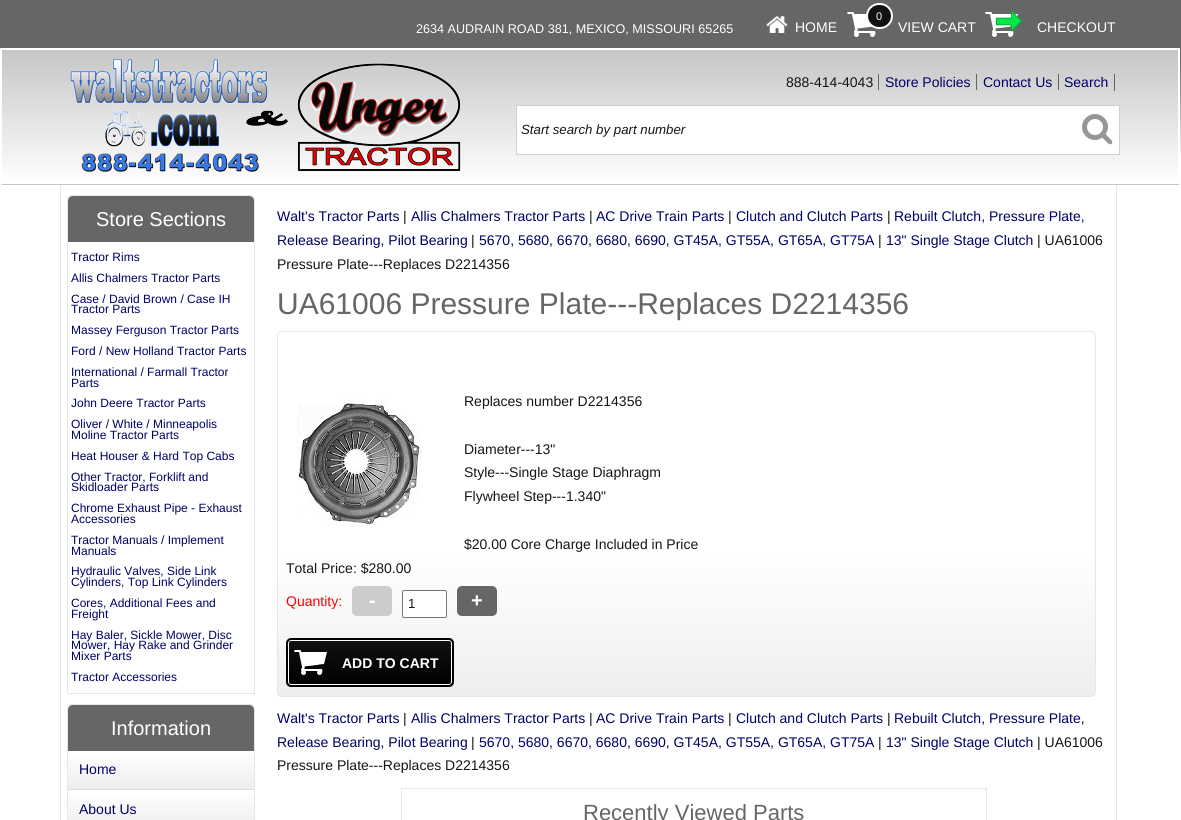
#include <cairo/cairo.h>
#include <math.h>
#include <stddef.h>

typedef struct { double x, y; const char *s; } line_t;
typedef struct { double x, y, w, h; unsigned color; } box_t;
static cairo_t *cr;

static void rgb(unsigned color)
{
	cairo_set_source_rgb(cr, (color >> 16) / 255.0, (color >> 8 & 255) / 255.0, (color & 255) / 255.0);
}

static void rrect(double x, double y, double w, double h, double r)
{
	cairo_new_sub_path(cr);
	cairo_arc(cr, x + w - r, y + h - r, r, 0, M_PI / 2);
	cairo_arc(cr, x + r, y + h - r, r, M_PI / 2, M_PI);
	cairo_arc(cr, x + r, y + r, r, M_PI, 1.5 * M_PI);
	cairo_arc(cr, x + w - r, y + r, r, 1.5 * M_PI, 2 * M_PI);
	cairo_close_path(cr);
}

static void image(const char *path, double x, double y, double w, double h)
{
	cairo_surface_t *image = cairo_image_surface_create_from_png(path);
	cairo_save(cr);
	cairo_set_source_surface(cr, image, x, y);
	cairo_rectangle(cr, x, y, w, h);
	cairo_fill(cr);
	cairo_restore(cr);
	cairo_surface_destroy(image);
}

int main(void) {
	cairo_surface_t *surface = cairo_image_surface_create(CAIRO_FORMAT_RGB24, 1181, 820);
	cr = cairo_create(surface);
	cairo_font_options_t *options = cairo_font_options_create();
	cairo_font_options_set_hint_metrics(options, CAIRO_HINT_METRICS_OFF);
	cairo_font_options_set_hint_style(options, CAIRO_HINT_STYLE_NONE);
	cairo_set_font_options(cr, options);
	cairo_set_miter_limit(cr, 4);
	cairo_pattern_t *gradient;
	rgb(0xffffff);
	cairo_paint(cr);
	gradient = cairo_pattern_create_linear(590, 0, 591, 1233);
	cairo_pattern_add_color_stop_rgba(gradient, 0.05, 0.4, 0.4, 0.4, 1);
	cairo_pattern_add_color_stop_rgba(gradient, 0.13, 1, 1, 1, 1);
	cairo_pattern_add_color_stop_rgba(gradient, 1, 1, 1, 1, 1);
	cairo_set_source(cr, gradient);
	cairo_pattern_destroy(gradient);
	cairo_rectangle(cr, 0, 0, 1181, 159);
	cairo_fill(cr);
	image("img/1.png", 766, 16, 22, 17);
	image("img/2.png", 847, 12, 29, 25);
	rgb(0x111111);
	rrect(867, 4, 25, 24, 12);
	cairo_fill_preserve(cr);
	rgb(0xffffff);
	cairo_stroke(cr);
	image("img/3.png", 985, 10, 37, 27);
	gradient = cairo_pattern_create_linear(590, 50, 590, 184);
	cairo_pattern_add_color_stop_rgba(gradient, 0, 0.776, 0.776, 0.776, 1);
	cairo_pattern_add_color_stop_rgba(gradient, 1, 1, 1, 1, 1);
	cairo_set_source(cr, gradient);
	cairo_pattern_destroy(gradient);
	cairo_rectangle(cr, 2, 50, 1176, 128);
	cairo_fill(cr);
	rgb(0xffffff);
	cairo_rectangle(cr, 0, 48, 1180, 2);
	cairo_fill(cr);
	cairo_new_path(cr);
	cairo_move_to(cr, 1180, 48);
	cairo_line_to(cr, 1180, 185);
	cairo_line_to(cr, 1178, 184);
	cairo_line_to(cr, 1178, 50);
	cairo_close_path(cr);
	cairo_fill(cr);
	rgb(0xc6c6c6);
	cairo_new_path(cr);
	cairo_move_to(cr, 1180, 185);
	cairo_line_to(cr, 0, 185);
	cairo_line_to(cr, 2, 184);
	cairo_line_to(cr, 1178, 184);
	cairo_close_path(cr);
	cairo_fill(cr);
	rgb(0xffffff);
	cairo_new_path(cr);
	cairo_move_to(cr, 0, 185);
	cairo_line_to(cr, 0, 48);
	cairo_line_to(cr, 2, 50);
	cairo_line_to(cr, 2, 184);
	cairo_close_path(cr);
	cairo_fill(cr);
	image("img/4.png", 70, 58, 391, 114);
	{
		static const box_t items[] = {
			{1114, 74, 1, 17, 0x666666},
			{878, 74, 1, 16, 0x666666},
			{976, 74, 1, 16, 0x666666},
			{1058, 74, 1, 16, 0x666666},
		};
		for (size_t i = 0; i < sizeof items / sizeof *items; i++) {
			rgb(items[i].color);
			cairo_rectangle(cr, items[i].x, items[i].y, items[i].w, items[i].h);
			cairo_fill(cr);
		}
	}
	rgb(0xffffff);
	cairo_rectangle(cr, 516.5, 105.5, 603, 49);
	cairo_fill_preserve(cr);
	rgb(0xd0d0d0);
	cairo_set_line_width(cr, 1);
	cairo_stroke(cr);
	image("img/5.png", 1082, 114, 31, 31);
	rrect(1079.5, 111.5, 34, 34, 4.5);
	rgb(0xffffff);
	cairo_stroke(cr);
	rgb(0xe6e6e6);
	cairo_rectangle(cr, 1116, 185, 1, 635);
	cairo_fill(cr);
	cairo_rectangle(cr, 60, 185, 1, 635);
	cairo_fill(cr);
	cairo_new_path(cr);
	cairo_move_to(cr, 72, 195.5);
	cairo_line_to(cr, 250, 195.5);
	cairo_curve_to(cr, 252.5, 195.5, 254.5, 197.5, 254.5, 200);
	cairo_line_to(cr, 254.5, 693.5);
	cairo_line_to(cr, 67.5, 693.5);
	cairo_line_to(cr, 67.5, 200);
	cairo_curve_to(cr, 67.5, 197.5, 69.5, 195.5, 72, 195.5);
	cairo_close_path(cr);
	cairo_stroke(cr);
	rgb(0x666666);
	cairo_new_path(cr);
	cairo_move_to(cr, 73, 196);
	cairo_line_to(cr, 249, 196);
	cairo_curve_to(cr, 252, 196, 254, 198, 254, 201);
	cairo_line_to(cr, 254, 242);
	cairo_line_to(cr, 68, 242);
	cairo_line_to(cr, 68, 201);
	cairo_curve_to(cr, 68, 198, 70, 196, 73, 196);
	cairo_close_path(cr);
	cairo_fill(cr);
	cairo_new_path(cr);
	cairo_move_to(cr, 72, 704.5);
	cairo_line_to(cr, 250, 704.5);
	cairo_curve_to(cr, 252.5, 704.5, 254.5, 706.5, 254.5, 709);
	cairo_line_to(cr, 254.5, 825.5);
	cairo_line_to(cr, 67.5, 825.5);
	cairo_line_to(cr, 67.5, 709);
	cairo_curve_to(cr, 67.5, 706.5, 69.5, 704.5, 72, 704.5);
	cairo_close_path(cr);
	rgb(0xe6e6e6);
	cairo_stroke(cr);
	rgb(0x666666);
	cairo_new_path(cr);
	cairo_move_to(cr, 73, 705);
	cairo_line_to(cr, 249, 705);
	cairo_curve_to(cr, 252, 705, 254, 707, 254, 710);
	cairo_line_to(cr, 254, 751);
	cairo_line_to(cr, 68, 751);
	cairo_line_to(cr, 68, 710);
	cairo_curve_to(cr, 68, 707, 70, 705, 73, 705);
	cairo_close_path(cr);
	cairo_fill(cr);
	gradient = cairo_pattern_create_linear(161, 751, 161, 789);
	cairo_pattern_add_color_stop_rgba(gradient, 0, 1, 1, 1, 1);
	cairo_pattern_add_color_stop_rgba(gradient, 1, 0.933, 0.933, 0.933, 1);
	cairo_set_source(cr, gradient);
	cairo_pattern_destroy(gradient);
	cairo_rectangle(cr, 68, 757, 186, 32);
	cairo_fill(cr);
	rgb(0xdddddd);
	cairo_rectangle(cr, 68, 789, 186, 1);
	cairo_fill(cr);
	gradient = cairo_pattern_create_linear(161, 790, 161, 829);
	cairo_pattern_add_color_stop_rgba(gradient, 0, 1, 1, 1, 1);
	cairo_pattern_add_color_stop_rgba(gradient, 1, 0.933, 0.933, 0.933, 1);
	cairo_set_source(cr, gradient);
	cairo_pattern_destroy(gradient);
	cairo_rectangle(cr, 68, 796, 186, 24);
	cairo_fill(cr);
	cairo_save(cr);
	rrect(277, 331, 819, 366, 5);
	cairo_clip(cr);
	gradient = cairo_pattern_create_linear(687, 332, 687, 696);
	cairo_pattern_add_color_stop_rgba(gradient, 0.61, 1, 1, 1, 1);
	cairo_pattern_add_color_stop_rgba(gradient, 1, 0.933, 0.933, 0.933, 1);
	cairo_set_source(cr, gradient);
	cairo_pattern_destroy(gradient);
	cairo_rectangle(cr, 278, 332, 817, 364);
	cairo_fill(cr);
	cairo_restore(cr);
	rrect(277.5, 331.5, 818, 365, 4.5);
	rgb(0xe6e6e6);
	cairo_stroke(cr);
	rgb(0xcccccc);
	rrect(352, 586, 40, 30, 5);
	cairo_fill(cr);
	rgb(0xffffff);
	rrect(402.5, 590.5, 44, 27, 1.5);
	cairo_fill_preserve(cr);
	rgb(0x767676);
	cairo_stroke(cr);
	rgb(0x666666);
	rrect(457, 586, 40, 30, 5);
	cairo_fill(cr);
	image("img/6.png", 288, 640, 164, 45);
	rrect(288.5, 640.5, 163, 44, 2.5);
	rgb(0xffffff);
	cairo_stroke(cr);
	rrect(287, 639, 166, 47, 4);
	rgb(0x000000);
	cairo_set_line_width(cr, 2);
	cairo_stroke(cr);
	image("img/7.png", 297, 399, 125, 127);
	cairo_rectangle(cr, 401.5, 788.5, 585, 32);
	rgb(0xe6e6e6);
	cairo_set_line_width(cr, 1);
	cairo_stroke(cr);
	cairo_select_font_face(cr, "Liberation Sans", CAIRO_FONT_SLANT_NORMAL, CAIRO_FONT_WEIGHT_NORMAL);
	cairo_set_font_size(cr, 12.6);
	rgb(0xffffff);
	cairo_move_to(cr, 416, 33);
	cairo_show_text(cr, "2634 AUDRAIN ROAD 381, MEXICO, MISSOURI 65265");
	cairo_set_font_size(cr, 14);
	cairo_move_to(cr, 795, 32);
	cairo_show_text(cr, "HOME");
	cairo_set_font_size(cr, 11);
	cairo_move_to(cr, 876, 20);
	cairo_show_text(cr, "0");
	cairo_set_font_size(cr, 14);
	cairo_move_to(cr, 898, 32);
	cairo_show_text(cr, "VIEW CART");
	cairo_move_to(cr, 1037, 32);
	cairo_show_text(cr, "CHECKOUT");
	rgb(0x151515);
	cairo_move_to(cr, 786, 87);
	cairo_show_text(cr, "888-414-4043");
	rgb(0x000066);
	{
		static const line_t items[] = {
			{885, 87, "Store Policies"},
			{983, 87, "Contact Us"},
			{1064, 87, "Search"},
		};
		for (size_t i = 0; i < sizeof items / sizeof *items; i++) {
			cairo_move_to(cr, items[i].x, items[i].y);
			cairo_show_text(cr, items[i].s);
		}
	}
	cairo_select_font_face(cr, "Liberation Sans", CAIRO_FONT_SLANT_ITALIC, CAIRO_FONT_WEIGHT_NORMAL);
	cairo_set_font_size(cr, 13.25);
	rgb(0x151515);
	cairo_move_to(cr, 521, 134);
	cairo_show_text(cr, "Start search by part number");
	cairo_select_font_face(cr, "Liberation Sans", CAIRO_FONT_SLANT_NORMAL, CAIRO_FONT_WEIGHT_NORMAL);
	cairo_set_font_size(cr, 20);
	rgb(0xffffff);
	cairo_move_to(cr, 96, 226);
	cairo_show_text(cr, "Store Sections");
	cairo_set_font_size(cr, 12);
	rgb(0x000066);
	{
		static const line_t items[] = {
			{71, 261, "Tractor Rims"},
			{71, 282, "Allis Chalmers Tractor Parts"},
			{71, 303, "Case / David Brown / Case IH"},
			{71, 313, "Tractor Parts"},
			{71, 334, "Massey Ferguson Tractor Parts"},
			{71, 355, "Ford / New Holland Tractor Parts"},
			{71, 376, "International / Farmall Tractor"},
			{71, 387, "Parts"},
			{71, 407, "John Deere Tractor Parts"},
			{71, 428, "Oliver / White / Minneapolis"},
			{71, 439, "Moline Tractor Parts"},
			{71, 460, "Heat Houser & Hard Top Cabs"},
			{71, 481, "Other Tractor, Forklift and"},
			{71, 491, "Skidloader Parts"},
			{71, 512, "Chrome Exhaust Pipe - Exhaust"},
			{71, 523, "Accessories"},
			{71, 544, "Tractor Manuals / Implement"},
			{71, 555, "Manuals"},
			{71, 575, "Hydraulic Valves, Side Link"},
			{71, 586, "Cylinders, Top Link Cylinders"},
			{71, 607, "Cores, Additional Fees and"},
			{71, 618, "Freight"},
			{71, 639, "Hay Baler, Sickle Mower, Disc"},
			{71, 649, "Mower, Hay Rake and Grinder"},
			{71, 660, "Mixer Parts"},
			{71, 681, "Tractor Accessories"},
		};
		for (size_t i = 0; i < sizeof items / sizeof *items; i++) {
			cairo_move_to(cr, items[i].x, items[i].y);
			cairo_show_text(cr, items[i].s);
		}
	}
	cairo_set_font_size(cr, 20);
	rgb(0xffffff);
	cairo_move_to(cr, 111, 735);
	cairo_show_text(cr, "Information");
	cairo_set_font_size(cr, 14);
	rgb(0x000066);
	{
		static const line_t items[] = {
			{79, 774, "Home"},
			{79, 814, "About Us"},
			{277, 221, "Walt's Tractor Parts"},
		};
		for (size_t i = 0; i < sizeof items / sizeof *items; i++) {
			cairo_move_to(cr, items[i].x, items[i].y);
			cairo_show_text(cr, items[i].s);
		}
	}
	rgb(0x151515);
	cairo_move_to(cr, 403, 221);
	cairo_show_text(cr, "|");
	rgb(0x000066);
	cairo_move_to(cr, 411, 221);
	cairo_show_text(cr, "Allis Chalmers Tractor Parts");
	rgb(0x151515);
	cairo_move_to(cr, 589, 221);
	cairo_show_text(cr, "|");
	rgb(0x000066);
	cairo_move_to(cr, 596, 221);
	cairo_show_text(cr, "AC Drive Train Parts");
	rgb(0x151515);
	cairo_move_to(cr, 728, 221);
	cairo_show_text(cr, "|");
	rgb(0x000066);
	cairo_move_to(cr, 736, 221);
	cairo_show_text(cr, "Clutch and Clutch Parts");
	rgb(0x151515);
	cairo_move_to(cr, 887, 221);
	cairo_show_text(cr, "|");
	rgb(0x000066);
	cairo_move_to(cr, 894, 221);
	cairo_show_text(cr, "Rebuilt Clutch, Pressure Plate,");
	cairo_move_to(cr, 277, 245);
	cairo_show_text(cr, "Release Bearing, Pilot Bearing");
	rgb(0x151515);
	cairo_move_to(cr, 471, 245);
	cairo_show_text(cr, "|");
	rgb(0x000066);
	cairo_move_to(cr, 479, 245);
	cairo_show_text(cr, "5670, 5680, 6670, 6680, 6690, GT45A, GT55A, GT65A, GT75A");
	rgb(0x151515);
	cairo_move_to(cr, 878, 245);
	cairo_show_text(cr, "|");
	rgb(0x000066);
	cairo_move_to(cr, 886, 245);
	cairo_show_text(cr, "13\" Single Stage Clutch");
	rgb(0x151515);
	cairo_move_to(cr, 1037, 245);
	cairo_show_text(cr, "| UA61006");
	cairo_move_to(cr, 277, 269);
	cairo_show_text(cr, "Pressure Plate---Replaces D2214356");
	cairo_set_font_size(cr, 30);
	rgb(0x666666);
	cairo_move_to(cr, 277, 314);
	cairo_show_text(cr, "UA61006 Pressure Plate---Replaces D2214356");
	cairo_set_font_size(cr, 14);
	rgb(0x151515);
	{
		static const line_t items[] = {
			{464, 406, "Replaces number D2214356"},
			{464, 454, "Diameter---13\""},
			{464, 477, "Style---Single Stage Diaphragm"},
			{464, 501, "Flywheel Step---1.340\""},
			{464, 549, "$20.00 Core Charge Included in Price"},
			{286, 573, "Total Price: $280.00"},
		};
		for (size_t i = 0; i < sizeof items / sizeof *items; i++) {
			cairo_move_to(cr, items[i].x, items[i].y);
			cairo_show_text(cr, items[i].s);
		}
	}
	rgb(0xff0000);
	cairo_move_to(cr, 286, 606);
	cairo_show_text(cr, "Quantity:");
	cairo_select_font_face(cr, "Liberation Sans", CAIRO_FONT_SLANT_NORMAL, CAIRO_FONT_WEIGHT_BOLD);
	cairo_set_font_size(cr, 20);
	rgb(0xffffff);
	cairo_move_to(cr, 369, 607);
	cairo_show_text(cr, "-");
	cairo_select_font_face(cr, "Liberation Sans", CAIRO_FONT_SLANT_NORMAL, CAIRO_FONT_WEIGHT_NORMAL);
	cairo_set_font_size(cr, 13.25);
	rgb(0x151515);
	cairo_move_to(cr, 408, 608);
	cairo_show_text(cr, "1");
	cairo_select_font_face(cr, "Liberation Sans", CAIRO_FONT_SLANT_NORMAL, CAIRO_FONT_WEIGHT_BOLD);
	cairo_set_font_size(cr, 20);
	rgb(0xffffff);
	cairo_move_to(cr, 471, 607);
	cairo_show_text(cr, "+");
	cairo_set_font_size(cr, 14);
	cairo_move_to(cr, 342, 668);
	cairo_show_text(cr, "ADD TO CART");
	cairo_select_font_face(cr, "Liberation Sans", CAIRO_FONT_SLANT_NORMAL, CAIRO_FONT_WEIGHT_NORMAL);
	rgb(0x000066);
	cairo_move_to(cr, 277, 723);
	cairo_show_text(cr, "Walt's Tractor Parts");
	rgb(0x151515);
	cairo_move_to(cr, 403, 723);
	cairo_show_text(cr, "|");
	rgb(0x000066);
	cairo_move_to(cr, 411, 723);
	cairo_show_text(cr, "Allis Chalmers Tractor Parts");
	rgb(0x151515);
	cairo_move_to(cr, 589, 723);
	cairo_show_text(cr, "|");
	rgb(0x000066);
	cairo_move_to(cr, 596, 723);
	cairo_show_text(cr, "AC Drive Train Parts");
	rgb(0x151515);
	cairo_move_to(cr, 728, 723);
	cairo_show_text(cr, "|");
	rgb(0x000066);
	cairo_move_to(cr, 736, 723);
	cairo_show_text(cr, "Clutch and Clutch Parts");
	rgb(0x151515);
	cairo_move_to(cr, 887, 723);
	cairo_show_text(cr, "|");
	rgb(0x000066);
	cairo_move_to(cr, 894, 723);
	cairo_show_text(cr, "Rebuilt Clutch, Pressure Plate,");
	cairo_move_to(cr, 277, 747);
	cairo_show_text(cr, "Release Bearing, Pilot Bearing");
	rgb(0x151515);
	cairo_move_to(cr, 471, 747);
	cairo_show_text(cr, "|");
	rgb(0x000066);
	cairo_move_to(cr, 479, 747);
	cairo_show_text(cr, "5670, 5680, 6670, 6680, 6690, GT45A, GT55A, GT65A, GT75A");
	rgb(0x151515);
	cairo_move_to(cr, 878, 747);
	cairo_show_text(cr, "|");
	rgb(0x000066);
	cairo_move_to(cr, 886, 747);
	cairo_show_text(cr, "13\" Single Stage Clutch");
	rgb(0x151515);
	cairo_move_to(cr, 1037, 747);
	cairo_show_text(cr, "| UA61006");
	cairo_move_to(cr, 277, 770);
	cairo_show_text(cr, "Pressure Plate---Replaces D2214356");
	cairo_set_font_size(cr, 22);
	rgb(0x666666);
	cairo_move_to(cr, 583, 820);
	cairo_show_text(cr, "Recently Viewed Parts");
	cairo_surface_write_to_png(surface, "page.png");
	cairo_font_options_destroy(options);
	cairo_destroy(cr);
	cairo_surface_destroy(surface);
	return 0;
}
